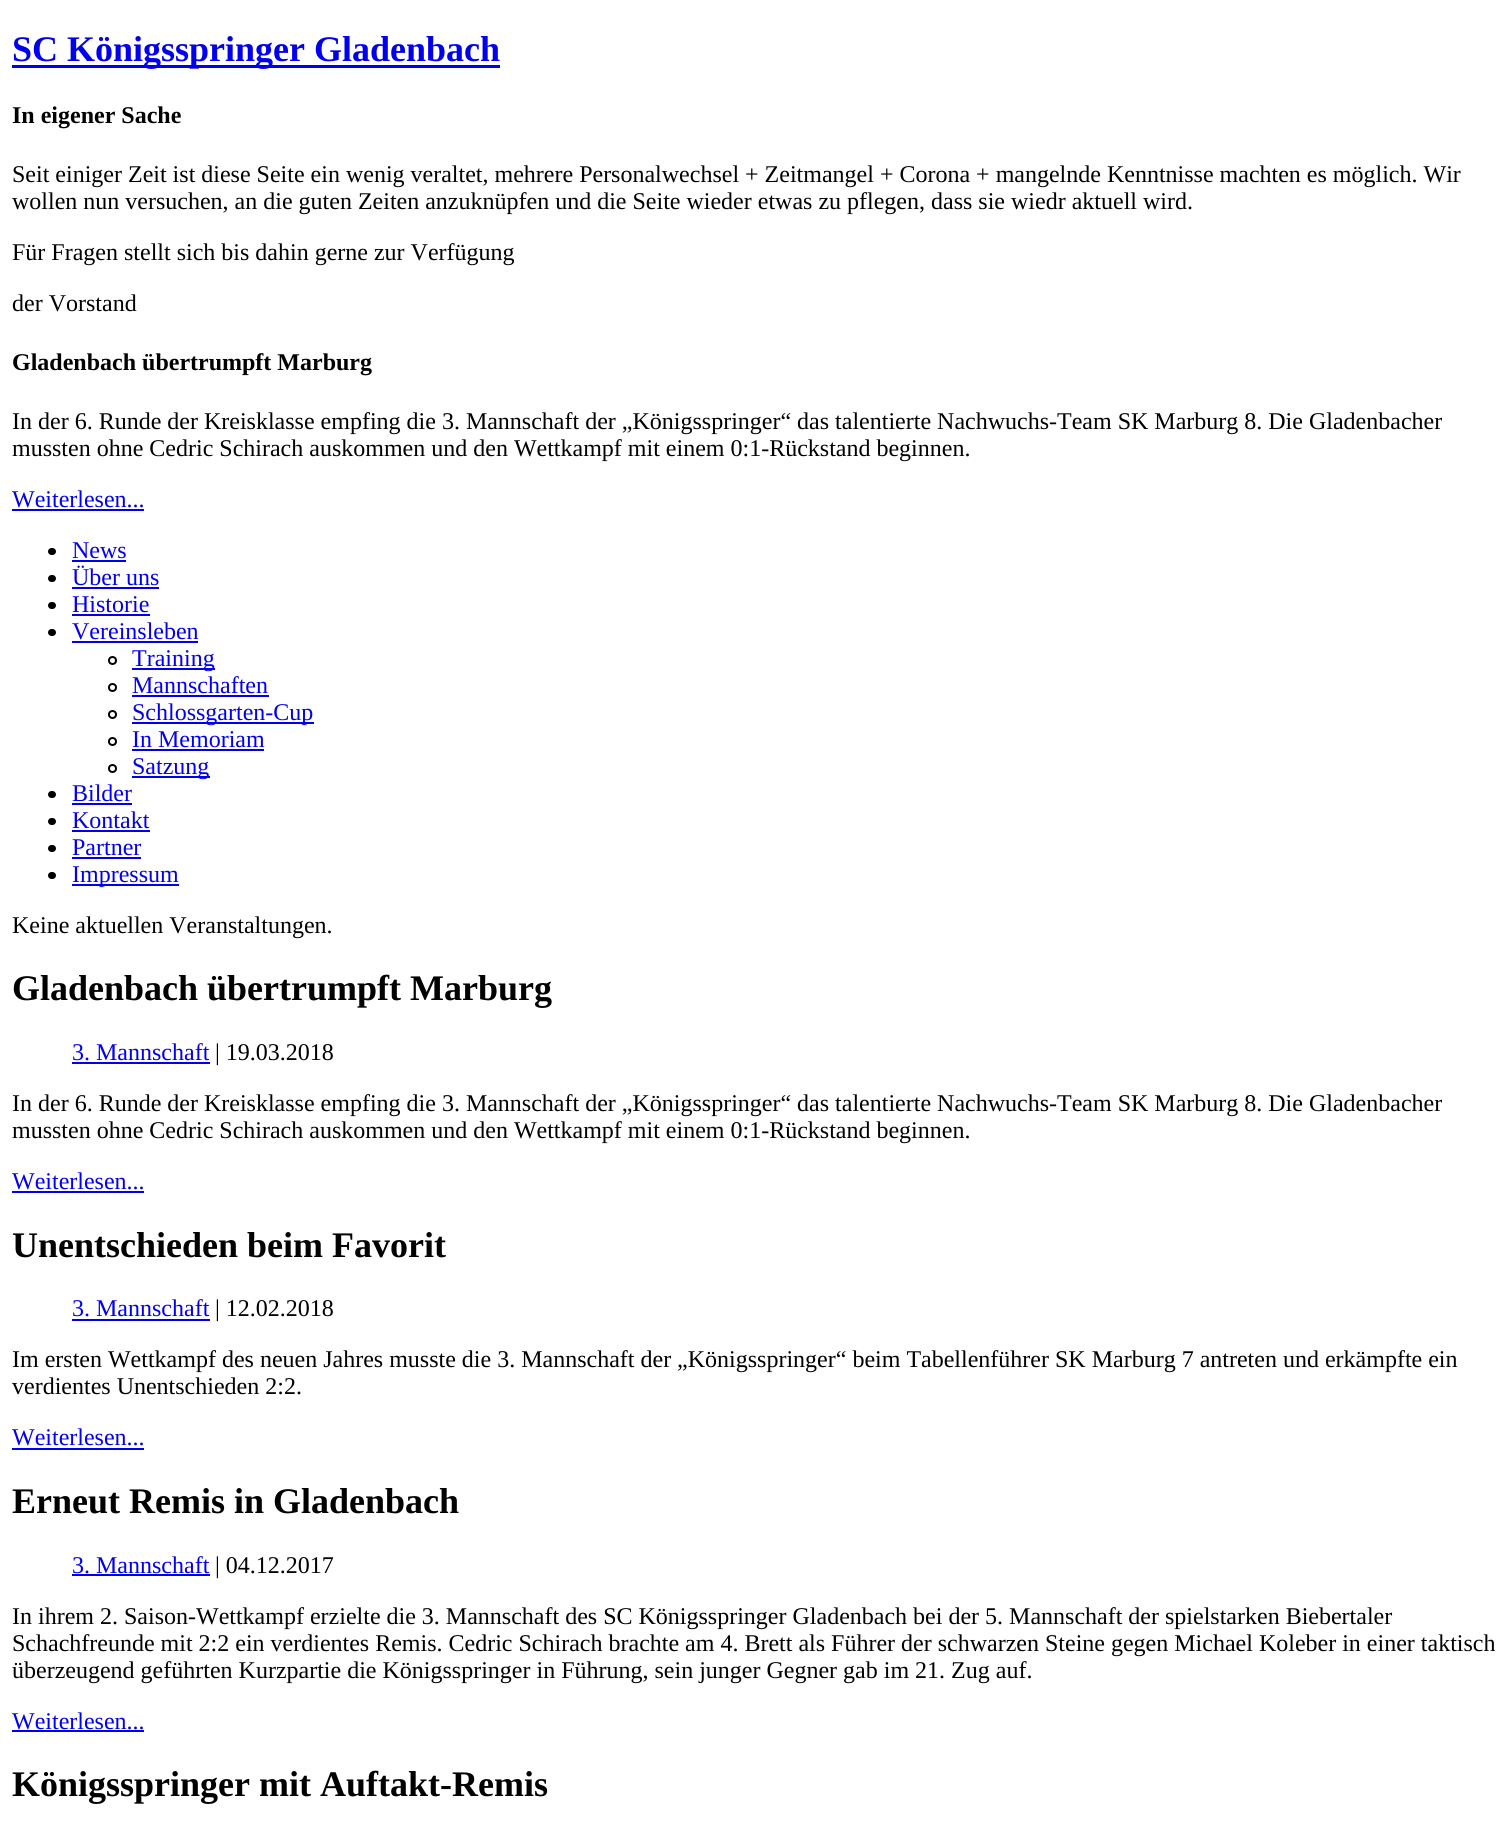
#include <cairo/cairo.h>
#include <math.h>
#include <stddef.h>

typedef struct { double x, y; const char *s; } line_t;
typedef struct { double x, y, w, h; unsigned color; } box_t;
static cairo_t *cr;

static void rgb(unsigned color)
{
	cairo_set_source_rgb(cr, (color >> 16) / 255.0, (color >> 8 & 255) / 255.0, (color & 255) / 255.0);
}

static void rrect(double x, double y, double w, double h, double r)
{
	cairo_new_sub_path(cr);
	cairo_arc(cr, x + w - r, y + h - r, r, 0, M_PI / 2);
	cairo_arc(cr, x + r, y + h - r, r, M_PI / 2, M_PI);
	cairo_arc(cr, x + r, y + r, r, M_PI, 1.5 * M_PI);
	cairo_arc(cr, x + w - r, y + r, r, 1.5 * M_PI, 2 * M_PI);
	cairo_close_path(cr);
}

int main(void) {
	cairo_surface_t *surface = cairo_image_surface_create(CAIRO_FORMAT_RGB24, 1509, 1848);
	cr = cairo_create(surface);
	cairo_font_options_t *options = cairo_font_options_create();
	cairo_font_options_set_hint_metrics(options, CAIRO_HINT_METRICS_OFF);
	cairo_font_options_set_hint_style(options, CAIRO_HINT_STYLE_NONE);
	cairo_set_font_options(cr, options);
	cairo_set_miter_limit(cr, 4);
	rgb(0xffffff);
	cairo_paint(cr);
	rgb(0x0000ee);
	cairo_rectangle(cr, 12, 65, 488, 3);
	cairo_fill(cr);
	cairo_rectangle(cr, 12, 509, 132, 2);
	cairo_fill(cr);
	rgb(0x000000);
	rrect(48, 548, 8, 7, 3.5);
	cairo_fill(cr);
	rgb(0x0000ee);
	cairo_rectangle(cr, 72, 560, 54, 2);
	cairo_fill(cr);
	rgb(0x000000);
	rrect(48, 575, 8, 7, 3.5);
	cairo_fill(cr);
	rgb(0x0000ee);
	cairo_rectangle(cr, 72, 587, 87, 2);
	cairo_fill(cr);
	rgb(0x000000);
	rrect(48, 602, 8, 7, 3.5);
	cairo_fill(cr);
	rgb(0x0000ee);
	cairo_rectangle(cr, 72, 614, 78, 2);
	cairo_fill(cr);
	rgb(0x000000);
	rrect(48, 629, 8, 7, 3.5);
	cairo_fill(cr);
	rgb(0x0000ee);
	cairo_rectangle(cr, 72, 641, 126, 2);
	cairo_fill(cr);
	cairo_arc(cr, 112.5, 660.5, 3.5, 0, 2 * M_PI);
	rgb(0x000000);
	cairo_stroke(cr);
	rgb(0x0000ee);
	cairo_rectangle(cr, 132, 668, 83, 2);
	cairo_fill(cr);
	cairo_arc(cr, 112.5, 687.5, 3.5, 0, 2 * M_PI);
	rgb(0x000000);
	cairo_stroke(cr);
	rgb(0x0000ee);
	cairo_rectangle(cr, 132, 695, 137, 2);
	cairo_fill(cr);
	cairo_arc(cr, 112.5, 714.5, 3.5, 0, 2 * M_PI);
	rgb(0x000000);
	cairo_stroke(cr);
	rgb(0x0000ee);
	cairo_rectangle(cr, 132, 722, 182, 2);
	cairo_fill(cr);
	cairo_arc(cr, 112.5, 741.5, 3.5, 0, 2 * M_PI);
	rgb(0x000000);
	cairo_stroke(cr);
	rgb(0x0000ee);
	cairo_rectangle(cr, 132, 749, 132, 2);
	cairo_fill(cr);
	cairo_arc(cr, 112.5, 768.5, 3.5, 0, 2 * M_PI);
	rgb(0x000000);
	cairo_stroke(cr);
	rgb(0x0000ee);
	cairo_rectangle(cr, 132, 776, 78, 2);
	cairo_fill(cr);
	rgb(0x000000);
	rrect(48, 791, 8, 7, 3.5);
	cairo_fill(cr);
	rgb(0x0000ee);
	cairo_rectangle(cr, 72, 803, 60, 2);
	cairo_fill(cr);
	rgb(0x000000);
	rrect(48, 818, 8, 7, 3.5);
	cairo_fill(cr);
	rgb(0x0000ee);
	cairo_rectangle(cr, 72, 830, 78, 2);
	cairo_fill(cr);
	rgb(0x000000);
	rrect(48, 845, 8, 7, 3.5);
	cairo_fill(cr);
	rgb(0x0000ee);
	cairo_rectangle(cr, 72, 857, 69, 2);
	cairo_fill(cr);
	rgb(0x000000);
	rrect(48, 872, 8, 7, 3.5);
	cairo_fill(cr);
	{
		static const box_t items[] = {
			{72, 884, 107, 2, 0x0000ee},
			{72, 1062, 138, 2, 0x0000ee},
			{12, 1191, 132, 2, 0x0000ee},
			{72, 1319, 138, 2, 0x0000ee},
			{12, 1448, 132, 2, 0x0000ee},
			{72, 1574, 138, 2, 0x0000ee},
			{12, 1730, 132, 2, 0x0000ee},
		};
		for (size_t i = 0; i < sizeof items / sizeof *items; i++) {
			rgb(items[i].color);
			cairo_rectangle(cr, items[i].x, items[i].y, items[i].w, items[i].h);
			cairo_fill(cr);
		}
	}
	cairo_select_font_face(cr, "Liberation Serif", CAIRO_FONT_SLANT_NORMAL, CAIRO_FONT_WEIGHT_BOLD);
	cairo_set_font_size(cr, 36);
	cairo_move_to(cr, 12, 61);
	cairo_show_text(cr, "SC Königsspringer Gladenbach");
	cairo_set_font_size(cr, 24);
	rgb(0x000000);
	cairo_move_to(cr, 12, 123);
	cairo_show_text(cr, "In eigener Sache");
	cairo_select_font_face(cr, "Liberation Serif", CAIRO_FONT_SLANT_NORMAL, CAIRO_FONT_WEIGHT_NORMAL);
	{
		static const line_t items[] = {
			{12, 182, "Seit einiger Zeit ist diese Seite ein wenig veraltet, mehrere Personalwechsel + Zeitmangel + Corona + mangelnde Kenntnisse machten es möglich. Wir"},
			{12, 209, "wollen nun versuchen, an die guten Zeiten anzuknüpfen und die Seite wieder etwas zu pflegen, dass sie wiedr aktuell wird."},
			{12, 260, "Für Fragen stellt sich bis dahin gerne zur Verfügung"},
			{12, 311, "der Vorstand"},
		};
		for (size_t i = 0; i < sizeof items / sizeof *items; i++) {
			cairo_move_to(cr, items[i].x, items[i].y);
			cairo_show_text(cr, items[i].s);
		}
	}
	cairo_select_font_face(cr, "Liberation Serif", CAIRO_FONT_SLANT_NORMAL, CAIRO_FONT_WEIGHT_BOLD);
	cairo_move_to(cr, 12, 370);
	cairo_show_text(cr, "Gladenbach übertrumpft Marburg");
	cairo_select_font_face(cr, "Liberation Serif", CAIRO_FONT_SLANT_NORMAL, CAIRO_FONT_WEIGHT_NORMAL);
	cairo_move_to(cr, 12, 429);
	cairo_show_text(cr, "In der 6. Runde der Kreisklasse empfing die 3. Mannschaft der „Königsspringer“ das talentierte Nachwuchs-Team SK Marburg 8. Die Gladenbacher");
	cairo_move_to(cr, 12, 456);
	cairo_show_text(cr, "mussten ohne Cedric Schirach auskommen und den Wettkampf mit einem 0:1-Rückstand beginnen.");
	rgb(0x0000ee);
	{
		static const line_t items[] = {
			{12, 507, "Weiterlesen..."},
			{72, 558, "News"},
			{72, 585, "Über uns"},
			{72, 612, "Historie"},
			{72, 639, "Vereinsleben"},
			{132, 666, "Training"},
			{132, 693, "Mannschaften"},
			{132, 720, "Schlossgarten-Cup"},
			{132, 747, "In Memoriam"},
			{132, 774, "Satzung"},
			{72, 801, "Bilder"},
			{72, 828, "Kontakt"},
			{72, 855, "Partner"},
			{72, 882, "Impressum"},
		};
		for (size_t i = 0; i < sizeof items / sizeof *items; i++) {
			cairo_move_to(cr, items[i].x, items[i].y);
			cairo_show_text(cr, items[i].s);
		}
	}
	rgb(0x000000);
	cairo_move_to(cr, 12, 933);
	cairo_show_text(cr, "Keine aktuellen Veranstaltungen.");
	cairo_select_font_face(cr, "Liberation Serif", CAIRO_FONT_SLANT_NORMAL, CAIRO_FONT_WEIGHT_BOLD);
	cairo_set_font_size(cr, 36);
	cairo_move_to(cr, 12, 1000);
	cairo_show_text(cr, "Gladenbach übertrumpft Marburg");
	cairo_select_font_face(cr, "Liberation Serif", CAIRO_FONT_SLANT_NORMAL, CAIRO_FONT_WEIGHT_NORMAL);
	cairo_set_font_size(cr, 24);
	rgb(0x0000ee);
	cairo_move_to(cr, 72, 1060);
	cairo_show_text(cr, "3. Mannschaft");
	rgb(0x000000);
	{
		static const line_t items[] = {
			{215, 1060, "| 19.03.2018"},
			{12, 1111, "In der 6. Runde der Kreisklasse empfing die 3. Mannschaft der „Königsspringer“ das talentierte Nachwuchs-Team SK Marburg 8. Die Gladenbacher"},
			{12, 1138, "mussten ohne Cedric Schirach auskommen und den Wettkampf mit einem 0:1-Rückstand beginnen."},
		};
		for (size_t i = 0; i < sizeof items / sizeof *items; i++) {
			cairo_move_to(cr, items[i].x, items[i].y);
			cairo_show_text(cr, items[i].s);
		}
	}
	rgb(0x0000ee);
	cairo_move_to(cr, 12, 1189);
	cairo_show_text(cr, "Weiterlesen...");
	cairo_select_font_face(cr, "Liberation Serif", CAIRO_FONT_SLANT_NORMAL, CAIRO_FONT_WEIGHT_BOLD);
	cairo_set_font_size(cr, 36);
	rgb(0x000000);
	cairo_move_to(cr, 12, 1257);
	cairo_show_text(cr, "Unentschieden beim Favorit");
	cairo_select_font_face(cr, "Liberation Serif", CAIRO_FONT_SLANT_NORMAL, CAIRO_FONT_WEIGHT_NORMAL);
	cairo_set_font_size(cr, 24);
	rgb(0x0000ee);
	cairo_move_to(cr, 72, 1316);
	cairo_show_text(cr, "3. Mannschaft");
	rgb(0x000000);
	{
		static const line_t items[] = {
			{215, 1316, "| 12.02.2018"},
			{12, 1367, "Im ersten Wettkampf des neuen Jahres musste die 3. Mannschaft der „Königsspringer“ beim Tabellenführer SK Marburg 7 antreten und erkämpfte ein"},
			{12, 1394, "verdientes Unentschieden 2:2."},
		};
		for (size_t i = 0; i < sizeof items / sizeof *items; i++) {
			cairo_move_to(cr, items[i].x, items[i].y);
			cairo_show_text(cr, items[i].s);
		}
	}
	rgb(0x0000ee);
	cairo_move_to(cr, 12, 1445);
	cairo_show_text(cr, "Weiterlesen...");
	cairo_select_font_face(cr, "Liberation Serif", CAIRO_FONT_SLANT_NORMAL, CAIRO_FONT_WEIGHT_BOLD);
	cairo_set_font_size(cr, 36);
	rgb(0x000000);
	cairo_move_to(cr, 12, 1513);
	cairo_show_text(cr, "Erneut Remis in Gladenbach");
	cairo_select_font_face(cr, "Liberation Serif", CAIRO_FONT_SLANT_NORMAL, CAIRO_FONT_WEIGHT_NORMAL);
	cairo_set_font_size(cr, 24);
	rgb(0x0000ee);
	cairo_move_to(cr, 72, 1573);
	cairo_show_text(cr, "3. Mannschaft");
	rgb(0x000000);
	{
		static const line_t items[] = {
			{215, 1573, "| 04.12.2017"},
			{12, 1624, "In ihrem 2. Saison-Wettkampf erzielte die 3. Mannschaft des SC Königsspringer Gladenbach bei der 5. Mannschaft der spielstarken Biebertaler"},
			{12, 1651, "Schachfreunde mit 2:2 ein verdientes Remis. Cedric Schirach brachte am 4. Brett als Führer der schwarzen Steine gegen Michael Koleber in einer taktisch"},
			{12, 1678, "überzeugend geführten Kurzpartie die Königsspringer in Führung, sein junger Gegner gab im 21. Zug auf."},
		};
		for (size_t i = 0; i < sizeof items / sizeof *items; i++) {
			cairo_move_to(cr, items[i].x, items[i].y);
			cairo_show_text(cr, items[i].s);
		}
	}
	rgb(0x0000ee);
	cairo_move_to(cr, 12, 1729);
	cairo_show_text(cr, "Weiterlesen...");
	cairo_select_font_face(cr, "Liberation Serif", CAIRO_FONT_SLANT_NORMAL, CAIRO_FONT_WEIGHT_BOLD);
	cairo_set_font_size(cr, 36);
	rgb(0x000000);
	cairo_move_to(cr, 12, 1796);
	cairo_show_text(cr, "Königsspringer mit Auftakt-Remis");
	cairo_surface_write_to_png(surface, "page.png");
	cairo_font_options_destroy(options);
	cairo_destroy(cr);
	cairo_surface_destroy(surface);
	return 0;
}
